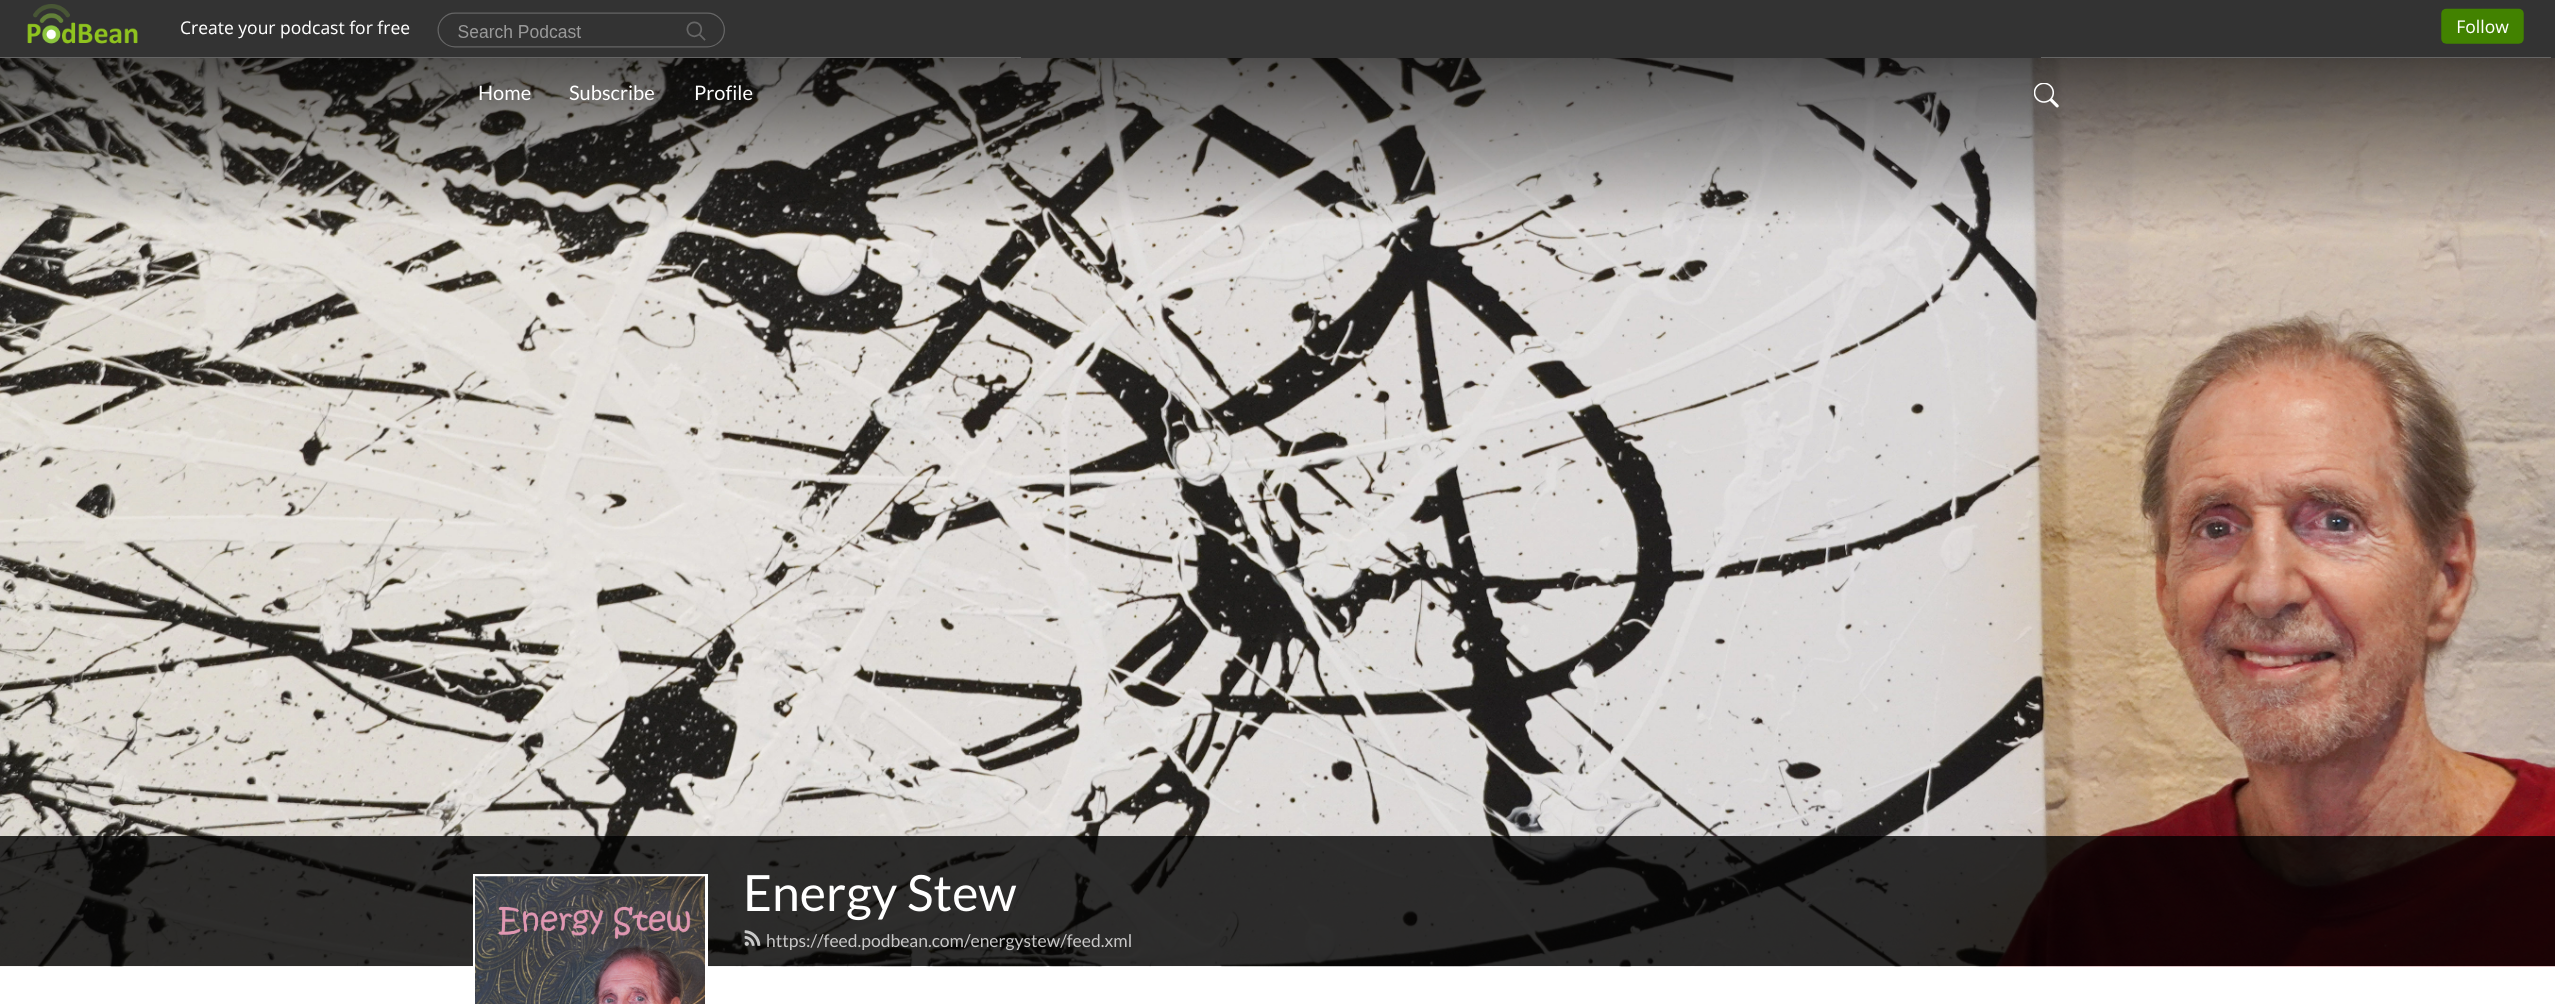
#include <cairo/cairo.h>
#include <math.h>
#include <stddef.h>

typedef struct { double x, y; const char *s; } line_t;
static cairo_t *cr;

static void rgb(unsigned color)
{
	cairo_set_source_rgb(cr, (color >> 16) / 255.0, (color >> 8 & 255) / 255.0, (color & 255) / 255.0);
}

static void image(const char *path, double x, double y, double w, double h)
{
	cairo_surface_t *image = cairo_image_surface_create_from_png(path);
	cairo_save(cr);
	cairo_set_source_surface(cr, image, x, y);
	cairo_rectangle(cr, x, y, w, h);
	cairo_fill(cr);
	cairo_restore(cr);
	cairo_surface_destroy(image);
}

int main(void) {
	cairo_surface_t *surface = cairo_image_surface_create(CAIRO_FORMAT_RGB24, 2555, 1004);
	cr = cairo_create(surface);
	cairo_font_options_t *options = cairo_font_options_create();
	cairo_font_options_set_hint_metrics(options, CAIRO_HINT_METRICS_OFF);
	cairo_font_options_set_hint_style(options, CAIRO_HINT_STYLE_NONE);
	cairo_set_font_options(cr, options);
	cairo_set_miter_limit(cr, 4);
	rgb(0xffffff);
	cairo_paint(cr);
	rgb(0x333333);
	cairo_rectangle(cr, 0, 0, 2555, 58);
	cairo_fill(cr);
	image("img/1.png", 0, 4, 2551, 54);
	image("img/4.png", 0, 58, 2555, 909);
	image("img/2.png", 2034, 83, 25, 25);
	cairo_set_source_rgba(cr, 0, 0, 0, 0.8);
	cairo_rectangle(cr, 0, 836, 2555, 130);
	cairo_fill(cr);
	cairo_rectangle(cr, 474.5, 875.5, 232, 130);
	rgb(0xffffff);
	cairo_set_line_width(cr, 3);
	cairo_stroke(cr);
	image("img/3.png", 475, 876, 230, 128);
	image("img/5.png", 744, 930, 17, 16);
	cairo_select_font_face(cr, "Lato", CAIRO_FONT_SLANT_NORMAL, CAIRO_FONT_WEIGHT_NORMAL);
	cairo_set_font_size(cr, 20);
	{
		static const line_t items[] = {
			{478, 100, "Home"},
			{569, 100, "Subscribe"},
			{694, 100, "Profile"},
		};
		for (size_t i = 0; i < sizeof items / sizeof *items; i++) {
			cairo_move_to(cr, items[i].x, items[i].y);
			cairo_show_text(cr, items[i].s);
		}
	}
	cairo_set_font_size(cr, 50);
	cairo_move_to(cr, 743, 911);
	cairo_show_text(cr, "Energy Stew");
	cairo_set_font_size(cr, 17.5);
	rgb(0xc9c8c8);
	cairo_move_to(cr, 766, 947);
	cairo_show_text(cr, "https://feed.podbean.com/energystew/feed.xml");
	cairo_surface_write_to_png(surface, "page.png");
	cairo_font_options_destroy(options);
	cairo_destroy(cr);
	cairo_surface_destroy(surface);
	return 0;
}
